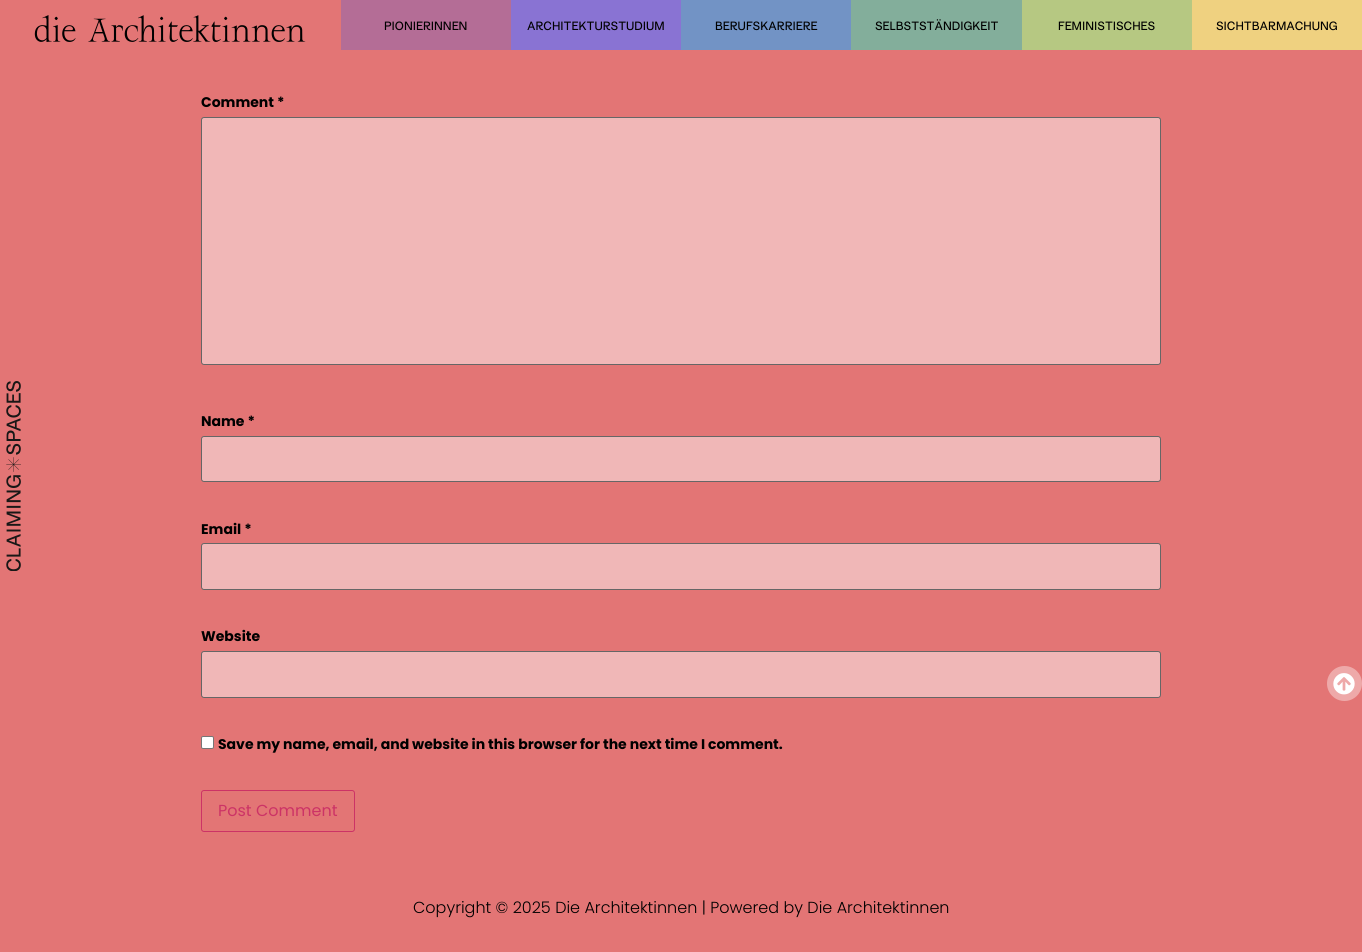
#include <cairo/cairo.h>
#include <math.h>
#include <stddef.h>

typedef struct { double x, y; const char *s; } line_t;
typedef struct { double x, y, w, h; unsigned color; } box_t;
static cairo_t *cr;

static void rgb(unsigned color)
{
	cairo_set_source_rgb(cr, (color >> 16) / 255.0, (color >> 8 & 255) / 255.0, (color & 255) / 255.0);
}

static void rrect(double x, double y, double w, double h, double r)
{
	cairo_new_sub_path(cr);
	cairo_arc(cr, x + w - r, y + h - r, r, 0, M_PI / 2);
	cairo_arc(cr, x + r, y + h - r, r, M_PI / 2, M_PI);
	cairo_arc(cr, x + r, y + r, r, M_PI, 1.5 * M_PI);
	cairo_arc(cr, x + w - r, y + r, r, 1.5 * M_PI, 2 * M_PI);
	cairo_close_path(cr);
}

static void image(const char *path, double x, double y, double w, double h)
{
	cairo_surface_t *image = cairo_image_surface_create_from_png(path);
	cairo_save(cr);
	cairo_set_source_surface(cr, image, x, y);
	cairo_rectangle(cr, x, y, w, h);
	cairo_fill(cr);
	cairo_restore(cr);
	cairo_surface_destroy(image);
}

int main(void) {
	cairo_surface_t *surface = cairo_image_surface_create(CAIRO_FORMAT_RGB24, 1362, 952);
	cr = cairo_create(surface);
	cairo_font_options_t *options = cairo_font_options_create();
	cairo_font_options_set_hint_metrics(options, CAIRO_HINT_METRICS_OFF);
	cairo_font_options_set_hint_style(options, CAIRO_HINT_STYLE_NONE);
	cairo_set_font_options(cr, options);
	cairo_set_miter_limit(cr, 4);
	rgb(0xe37575);
	cairo_paint(cr);
	image("img/1.png", 34, 15, 272, 27);
	{
		static const box_t items[] = {
			{341, 0, 170, 50, 0xb46d96},
			{511, 0, 170, 50, 0x8973d3},
			{681, 0, 170, 50, 0x7293c5},
			{851, 0, 171, 50, 0x83ae9b},
			{1022, 0, 170, 50, 0xb6c882},
			{1192, 0, 170, 50, 0xefd180},
		};
		for (size_t i = 0; i < sizeof items / sizeof *items; i++) {
			rgb(items[i].color);
			cairo_rectangle(cr, items[i].x, items[i].y, items[i].w, items[i].h);
			cairo_fill(cr);
		}
	}
	rgb(0xf1b7b7);
	rrect(201.5, 117.5, 959, 247, 2.5);
	cairo_fill_preserve(cr);
	rgb(0x666666);
	cairo_set_line_width(cr, 1);
	cairo_stroke(cr);
	rgb(0xf0b7b7);
	rrect(201.5, 436.5, 959, 45, 2.5);
	cairo_fill_preserve(cr);
	rgb(0x666666);
	cairo_stroke(cr);
	rgb(0xf0b7b7);
	rrect(201.5, 543.5, 959, 46, 2.5);
	cairo_fill_preserve(cr);
	rgb(0x666666);
	cairo_stroke(cr);
	rgb(0xf0b7b7);
	rrect(201.5, 651.5, 959, 46, 2.5);
	cairo_fill_preserve(cr);
	rgb(0x666666);
	cairo_stroke(cr);
	rgb(0xffffff);
	rrect(201.5, 736.5, 12, 12, 1.5);
	cairo_fill_preserve(cr);
	rgb(0x767676);
	cairo_stroke(cr);
	rrect(201.5, 790.5, 153, 41, 2.5);
	rgb(0xcc3366);
	cairo_stroke(cr);
	image("img/2.png", 6, 381, 15, 190);
	rgb(0xeea9a9);
	cairo_arc(cr, 1344.5, 683.5, 17.5, 0, 2 * M_PI);
	cairo_fill(cr);
	image("img/3.png", 1333, 673, 22, 22);
	cairo_select_font_face(cr, "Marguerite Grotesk", CAIRO_FONT_SLANT_NORMAL, CAIRO_FONT_WEIGHT_NORMAL);
	cairo_set_font_size(cr, 12);
	rgb(0x000000);
	{
		static const line_t items[] = {
			{384, 30, "PIONIERINNEN"},
			{527, 30, "ARCHITEKTURSTUDIUM"},
			{715, 30, "BERUFSKARRIERE"},
			{875, 30, "SELBSTSTÄNDIGKEIT"},
			{1058, 30, "FEMINISTISCHES"},
			{1216, 30, "SICHTBARMACHUNG"},
		};
		for (size_t i = 0; i < sizeof items / sizeof *items; i++) {
			cairo_move_to(cr, items[i].x, items[i].y);
			cairo_show_text(cr, items[i].s);
		}
	}
	cairo_select_font_face(cr, "Poppins", CAIRO_FONT_SLANT_NORMAL, CAIRO_FONT_WEIGHT_BOLD);
	cairo_set_font_size(cr, 14);
	{
		static const line_t items[] = {
			{201, 107, "Comment *"},
			{201, 426, "Name *"},
			{201, 534, "Email *"},
			{201, 641, "Website"},
			{218, 749, "Save my name, email, and website in this browser for the next time I comment."},
		};
		for (size_t i = 0; i < sizeof items / sizeof *items; i++) {
			cairo_move_to(cr, items[i].x, items[i].y);
			cairo_show_text(cr, items[i].s);
		}
	}
	cairo_select_font_face(cr, "Poppins", CAIRO_FONT_SLANT_NORMAL, CAIRO_FONT_WEIGHT_NORMAL);
	cairo_set_font_size(cr, 16);
	rgb(0xcc3366);
	cairo_move_to(cr, 218, 816);
	cairo_show_text(cr, "Post Comment");
	cairo_select_font_face(cr, "Poppins Light", CAIRO_FONT_SLANT_NORMAL, CAIRO_FONT_WEIGHT_NORMAL);
	rgb(0x000000);
	cairo_move_to(cr, 413, 913);
	cairo_show_text(cr, "Copyright © 2025 Die Architektinnen | Powered by Die Architektinnen");
	cairo_surface_write_to_png(surface, "page.png");
	cairo_font_options_destroy(options);
	cairo_destroy(cr);
	cairo_surface_destroy(surface);
	return 0;
}
